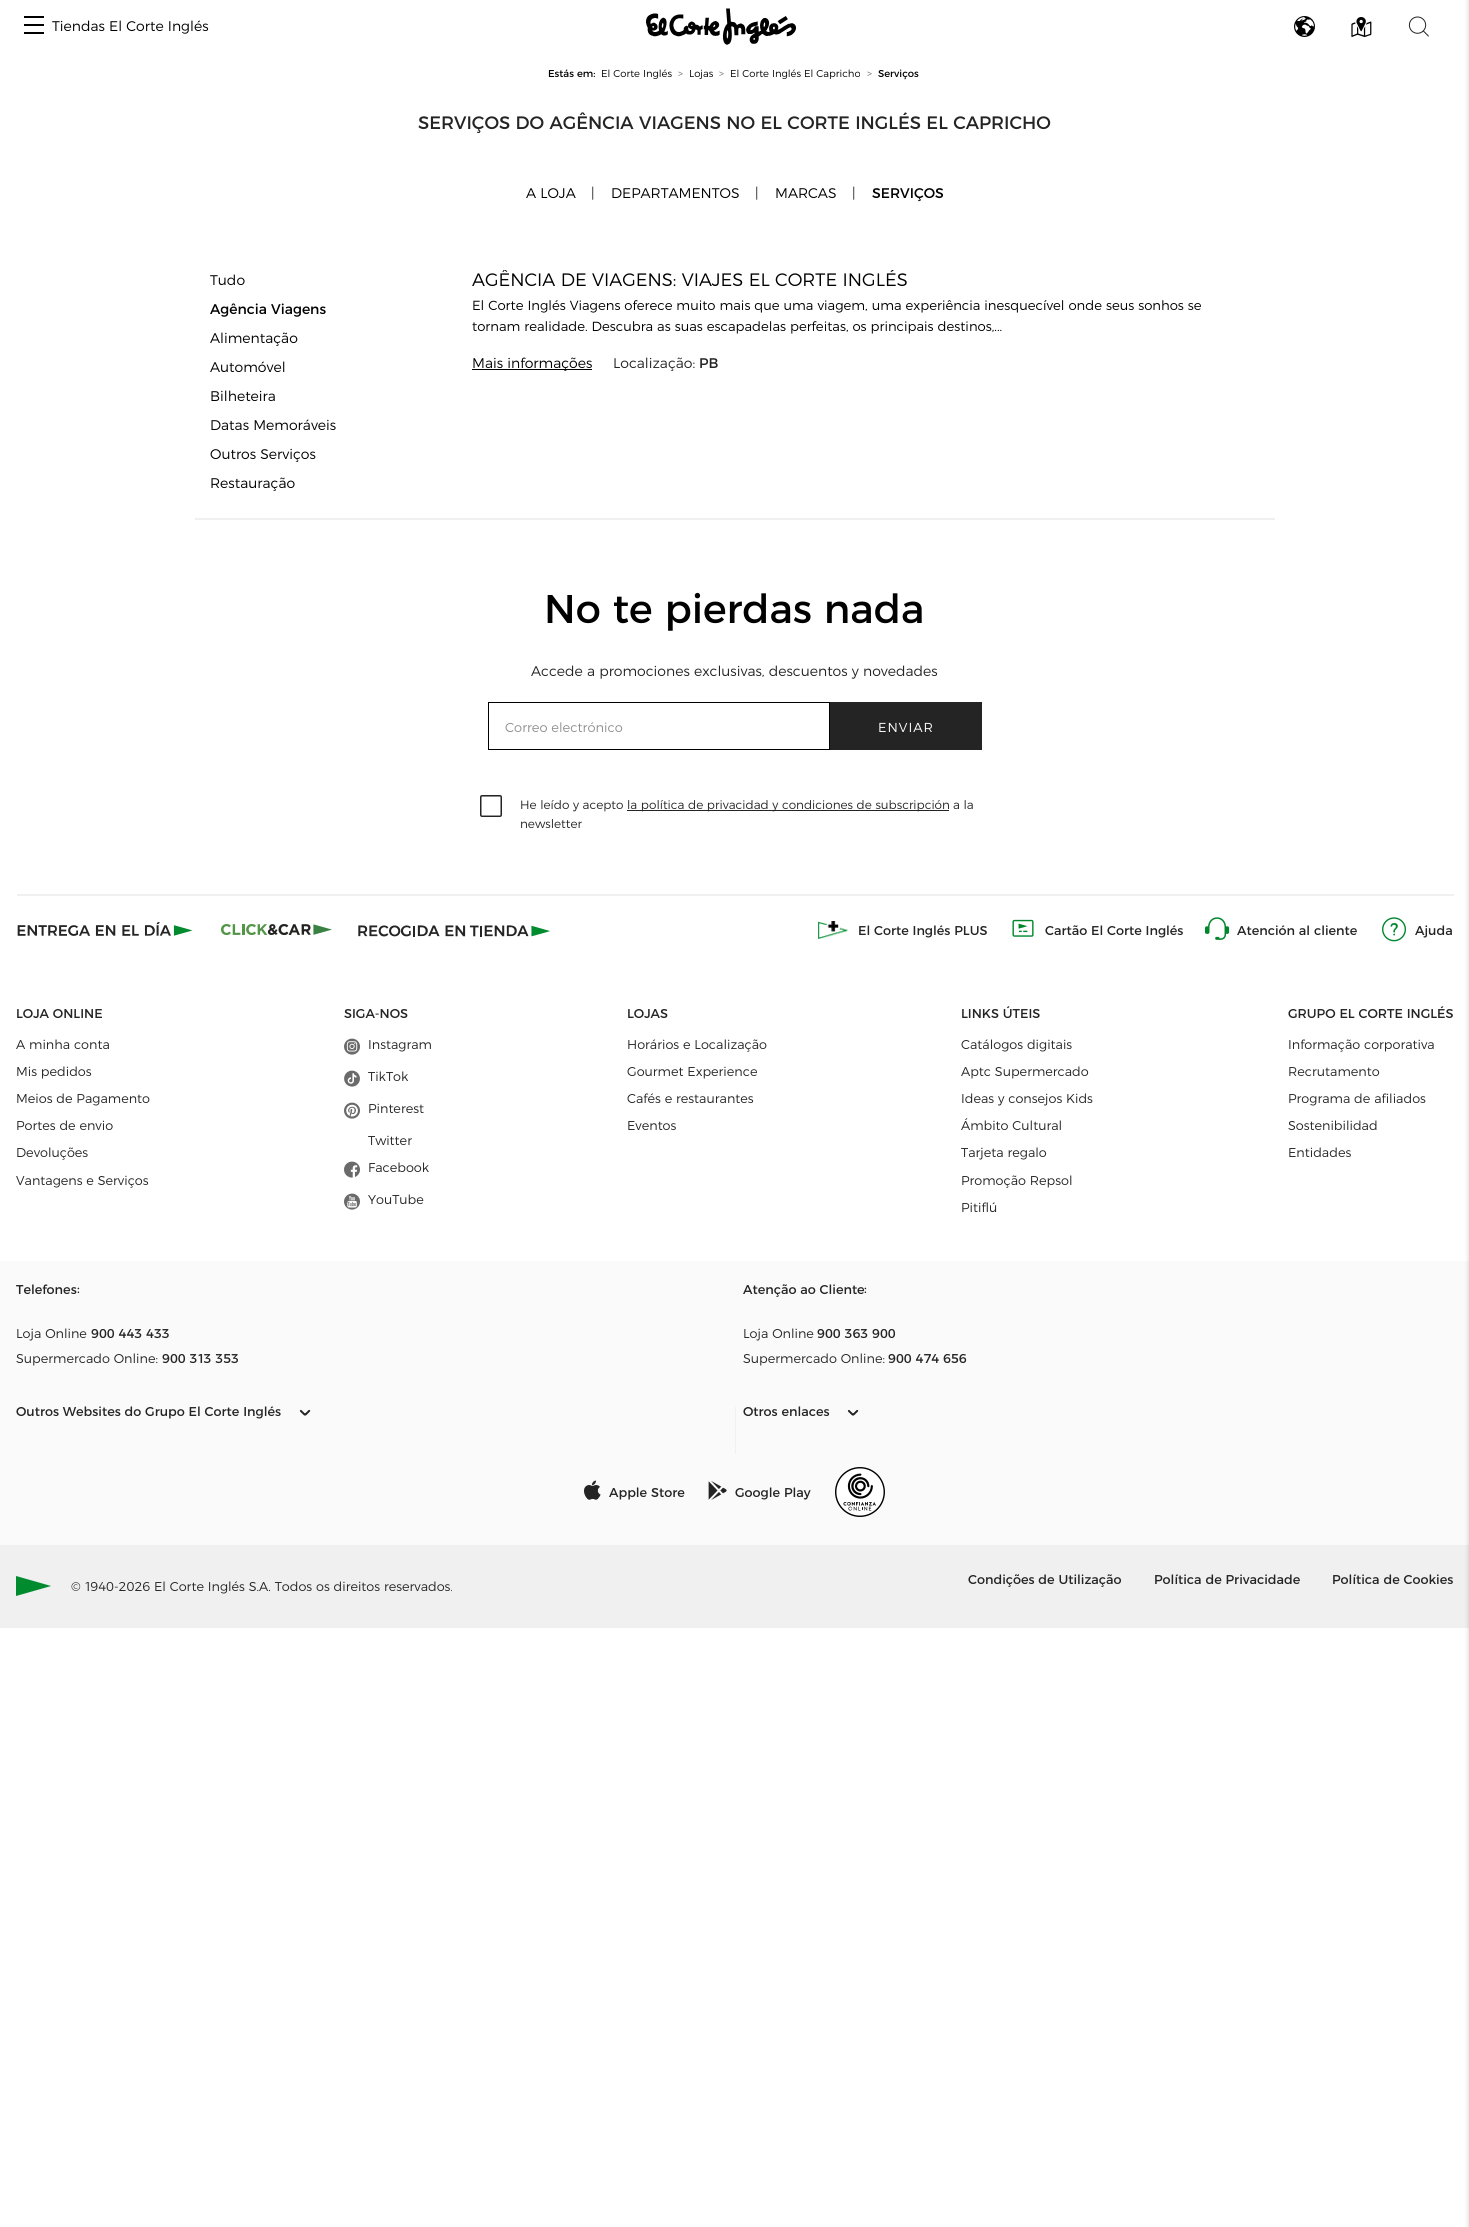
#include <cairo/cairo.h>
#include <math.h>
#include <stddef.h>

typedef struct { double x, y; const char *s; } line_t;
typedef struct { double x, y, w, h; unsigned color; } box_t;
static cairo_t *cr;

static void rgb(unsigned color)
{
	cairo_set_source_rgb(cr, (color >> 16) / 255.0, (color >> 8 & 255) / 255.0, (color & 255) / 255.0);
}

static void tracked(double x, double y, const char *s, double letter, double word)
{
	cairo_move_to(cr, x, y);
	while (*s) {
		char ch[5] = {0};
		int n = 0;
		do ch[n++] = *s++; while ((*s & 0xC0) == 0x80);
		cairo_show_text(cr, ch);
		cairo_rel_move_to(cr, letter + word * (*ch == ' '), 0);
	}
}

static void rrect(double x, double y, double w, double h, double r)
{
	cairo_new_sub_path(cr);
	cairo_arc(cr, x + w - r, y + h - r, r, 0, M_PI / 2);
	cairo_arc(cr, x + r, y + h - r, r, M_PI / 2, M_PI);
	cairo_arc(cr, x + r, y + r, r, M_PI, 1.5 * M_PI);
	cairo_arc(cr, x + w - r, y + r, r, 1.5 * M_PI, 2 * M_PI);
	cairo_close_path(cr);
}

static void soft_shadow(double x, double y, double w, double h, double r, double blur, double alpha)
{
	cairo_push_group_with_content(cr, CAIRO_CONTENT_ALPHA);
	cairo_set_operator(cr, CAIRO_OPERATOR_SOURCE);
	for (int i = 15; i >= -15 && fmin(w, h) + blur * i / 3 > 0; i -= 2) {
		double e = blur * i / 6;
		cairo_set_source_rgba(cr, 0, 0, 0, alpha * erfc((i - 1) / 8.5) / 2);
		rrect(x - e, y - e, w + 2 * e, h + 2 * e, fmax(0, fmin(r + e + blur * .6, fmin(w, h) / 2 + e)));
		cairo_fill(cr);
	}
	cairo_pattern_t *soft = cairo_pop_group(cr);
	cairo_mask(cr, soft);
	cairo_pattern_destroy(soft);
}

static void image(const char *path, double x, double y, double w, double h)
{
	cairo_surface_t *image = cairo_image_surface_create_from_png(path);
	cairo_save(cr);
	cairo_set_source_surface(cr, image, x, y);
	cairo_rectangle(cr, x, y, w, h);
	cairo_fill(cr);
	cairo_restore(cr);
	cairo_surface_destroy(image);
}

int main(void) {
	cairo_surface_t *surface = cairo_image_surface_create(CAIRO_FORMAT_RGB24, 1469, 2227);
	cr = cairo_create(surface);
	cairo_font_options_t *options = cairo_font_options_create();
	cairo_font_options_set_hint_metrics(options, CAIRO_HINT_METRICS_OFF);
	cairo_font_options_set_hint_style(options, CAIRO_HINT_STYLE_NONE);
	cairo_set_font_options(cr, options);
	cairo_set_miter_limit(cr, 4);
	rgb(0xffffff);
	cairo_paint(cr);
	{
		static const box_t items[] = {
			{24, 24, 20, 2, 0x000000},
			{24, 16, 20, 2, 0x000000},
			{24, 32, 20, 2, 0x000000},
		};
		for (size_t i = 0; i < sizeof items / sizeof *items; i++) {
			rgb(items[i].color);
			cairo_rectangle(cr, items[i].x, items[i].y, items[i].w, items[i].h);
			cairo_fill(cr);
		}
	}
	image("img/1.png", 646, 8, 150, 37);
	image("img/2.png", 1294, 16, 21, 21);
	image("img/3.png", 1351, 17, 21, 20);
	image("img/4.png", 1408, 16, 21, 21);
	rgb(0xfafafa);
	cairo_rectangle(cr, 0, 1261, 1469, 284);
	cairo_fill(cr);
	rgb(0xf0f0f0);
	cairo_rectangle(cr, 0, 1545, 1469, 83);
	cairo_fill(cr);
	rgb(0x000000);
	soft_shadow(1469, 0, 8, 2227, 0, 2.5, 0.2);
	rgb(0x000000);
	cairo_rectangle(cr, 472, 369, 120, 1);
	cairo_fill(cr);
	rgb(0xf0f0f0);
	cairo_rectangle(cr, 195, 518, 1080, 2);
	cairo_fill(cr);
	cairo_rectangle(cr, 488.5, 702.5, 341, 47);
	rgb(0x000000);
	cairo_set_line_width(cr, 1);
	cairo_stroke(cr);
	rgb(0x242424);
	cairo_rectangle(cr, 830, 702, 152, 48);
	cairo_fill(cr);
	rrect(480.75, 795.75, 20.5, 20.5, 1.25);
	cairo_set_line_width(cr, 1.5);
	cairo_stroke(cr);
	cairo_rectangle(cr, 627, 810, 322, 1);
	cairo_fill(cr);
	rgb(0xf0f0f0);
	cairo_rectangle(cr, 17, 894, 1437, 2);
	cairo_fill(cr);
	image("img/5.png", 17, 921, 176, 15);
	image("img/6.png", 221, 924, 111, 11);
	image("img/7.png", 358, 925, 192, 12);
	image("img/8.png", 818, 921, 30, 18);
	image("img/9.png", 1012, 919, 22, 18);
	image("img/10.png", 1205, 917, 25, 23);
	image("img/11.png", 1382, 917, 24, 25);
	image("img/12.png", 344, 1038, 16, 17);
	image("img/13.png", 344, 1070, 16, 17);
	image("img/14.png", 344, 1102, 16, 17);
	image("img/15.png", 344, 1161, 16, 17);
	image("img/16.png", 344, 1193, 16, 17);
	image("img/17.png", 299, 1409, 12, 7);
	cairo_rectangle(cr, 735, 1407, 1, 47);
	cairo_fill(cr);
	image("img/17.png", 847, 1409, 12, 7);
	image("img/18.png", 584, 1480, 17, 20);
	image("img/19.png", 708, 1481, 19, 19);
	image("img/20.png", 835, 1467, 50, 50);
	rgb(0x008c2e);
	cairo_new_path(cr);
	cairo_move_to(cr, 16, 1576);
	cairo_line_to(cr, 16, 1596);
	cairo_line_to(cr, 51, 1586);
	cairo_close_path(cr);
	cairo_fill(cr);
	cairo_select_font_face(cr, "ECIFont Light", CAIRO_FONT_SLANT_NORMAL, CAIRO_FONT_WEIGHT_NORMAL);
	cairo_set_font_size(cr, 14);
	rgb(0x000000);
	cairo_move_to(cr, 52, 31);
	cairo_show_text(cr, "Tiendas El Corte Inglés");
	cairo_select_font_face(cr, "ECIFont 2", CAIRO_FONT_SLANT_NORMAL, CAIRO_FONT_WEIGHT_NORMAL);
	cairo_set_font_size(cr, 10);
	cairo_move_to(cr, 548, 77);
	cairo_show_text(cr, "Estás em:");
	cairo_select_font_face(cr, "ECIFont Light", CAIRO_FONT_SLANT_NORMAL, CAIRO_FONT_WEIGHT_NORMAL);
	cairo_move_to(cr, 601, 77);
	cairo_show_text(cr, "El Corte Inglés");
	rgb(0x666666);
	cairo_move_to(cr, 678, 77);
	cairo_show_text(cr, ">");
	rgb(0x000000);
	cairo_move_to(cr, 689, 77);
	cairo_show_text(cr, "Lojas");
	rgb(0x666666);
	cairo_move_to(cr, 719, 77);
	cairo_show_text(cr, ">");
	rgb(0x000000);
	cairo_move_to(cr, 730, 77);
	cairo_show_text(cr, "El Corte Inglés El Capricho");
	rgb(0x666666);
	cairo_move_to(cr, 867, 77);
	cairo_show_text(cr, ">");
	cairo_select_font_face(cr, "ECIFont 2", CAIRO_FONT_SLANT_NORMAL, CAIRO_FONT_WEIGHT_NORMAL);
	rgb(0x000000);
	cairo_move_to(cr, 878, 77);
	cairo_show_text(cr, "Serviços");
	cairo_set_font_size(cr, 18);
	rgb(0x242424);
	cairo_move_to(cr, 418, 129);
	cairo_show_text(cr, "SERVIÇOS DO AGÊNCIA VIAGENS NO EL CORTE INGLÉS EL CAPRICHO");
	cairo_select_font_face(cr, "ECIFont Light", CAIRO_FONT_SLANT_NORMAL, CAIRO_FONT_WEIGHT_NORMAL);
	cairo_set_font_size(cr, 14);
	rgb(0x000000);
	cairo_move_to(cr, 526, 198);
	cairo_show_text(cr, "A LOJA");
	rgb(0x242424);
	cairo_move_to(cr, 591, 198);
	cairo_show_text(cr, "|");
	rgb(0x000000);
	cairo_move_to(cr, 611, 198);
	cairo_show_text(cr, "DEPARTAMENTOS");
	rgb(0x242424);
	cairo_move_to(cr, 755, 198);
	cairo_show_text(cr, "|");
	rgb(0x000000);
	cairo_move_to(cr, 775, 198);
	cairo_show_text(cr, "MARCAS");
	rgb(0x242424);
	cairo_move_to(cr, 852, 198);
	cairo_show_text(cr, "|");
	cairo_select_font_face(cr, "ECIFont 2", CAIRO_FONT_SLANT_NORMAL, CAIRO_FONT_WEIGHT_NORMAL);
	rgb(0x000000);
	cairo_move_to(cr, 872, 198);
	cairo_show_text(cr, "SERVIÇOS");
	cairo_select_font_face(cr, "ECIFont Light", CAIRO_FONT_SLANT_NORMAL, CAIRO_FONT_WEIGHT_NORMAL);
	cairo_move_to(cr, 210, 285);
	cairo_show_text(cr, "Tudo");
	cairo_select_font_face(cr, "ECIFont 2", CAIRO_FONT_SLANT_NORMAL, CAIRO_FONT_WEIGHT_NORMAL);
	cairo_move_to(cr, 210, 314);
	cairo_show_text(cr, "Agência Viagens");
	cairo_select_font_face(cr, "ECIFont Light", CAIRO_FONT_SLANT_NORMAL, CAIRO_FONT_WEIGHT_NORMAL);
	{
		static const line_t items[] = {
			{210, 343, "Alimentação"},
			{210, 372, "Automóvel"},
			{210, 401, "Bilheteira"},
			{210, 430, "Datas Memoráveis"},
			{210, 459, "Outros Serviços"},
			{210, 488, "Restauração"},
		};
		for (size_t i = 0; i < sizeof items / sizeof *items; i++) {
			cairo_move_to(cr, items[i].x, items[i].y);
			cairo_show_text(cr, items[i].s);
		}
	}
	cairo_save(cr);
	cairo_rectangle(cr, 472, 270, 758, 104);
	cairo_clip(cr);
	cairo_set_font_size(cr, 18);
	cairo_move_to(cr, 472, 286);
	cairo_show_text(cr, "AGÊNCIA DE VIAGENS: VIAJES EL CORTE INGLÉS");
	cairo_restore(cr);
	cairo_set_font_size(cr, 13.2);
	cairo_move_to(cr, 472, 310);
	cairo_show_text(cr, "El Corte Inglés Viagens oferece muito mais que uma viagem, uma experiência inesquecível onde seus sonhos se");
	cairo_move_to(cr, 472, 331);
	cairo_show_text(cr, "tornam realidade. Descubra as suas escapadelas perfeitas, os principais destinos,...");
	cairo_set_font_size(cr, 14);
	cairo_move_to(cr, 472, 368);
	cairo_show_text(cr, "Mais informações");
	rgb(0x242424);
	cairo_move_to(cr, 613, 368);
	cairo_show_text(cr, "Localização:");
	cairo_select_font_face(cr, "ECIFont 2", CAIRO_FONT_SLANT_NORMAL, CAIRO_FONT_WEIGHT_NORMAL);
	cairo_move_to(cr, 699, 368);
	cairo_show_text(cr, "PB");
	cairo_select_font_face(cr, "ECIFont", CAIRO_FONT_SLANT_NORMAL, CAIRO_FONT_WEIGHT_NORMAL);
	cairo_set_font_size(cr, 40);
	rgb(0x000000);
	cairo_move_to(cr, 544, 623);
	cairo_show_text(cr, "No te pierdas nada");
	cairo_select_font_face(cr, "ECIFont 2 Light", CAIRO_FONT_SLANT_NORMAL, CAIRO_FONT_WEIGHT_NORMAL);
	cairo_set_font_size(cr, 14);
	rgb(0x242424);
	cairo_move_to(cr, 531, 676);
	cairo_show_text(cr, "Accede a promociones exclusivas, descuentos y novedades");
	cairo_set_font_size(cr, 13);
	rgb(0x8f8f8f);
	cairo_move_to(cr, 505, 732);
	cairo_show_text(cr, "Correo electrónico");
	rgb(0xffffff);
	tracked(878, 732, "ENVIAR", 1, 0);
	cairo_set_font_size(cr, 12);
	rgb(0x242424);
	cairo_move_to(cr, 520, 809);
	cairo_show_text(cr, "He leído y acepto");
	cairo_select_font_face(cr, "ECIFont Light", CAIRO_FONT_SLANT_NORMAL, CAIRO_FONT_WEIGHT_NORMAL);
	cairo_move_to(cr, 627, 809);
	cairo_show_text(cr, "la política de privacidad y condiciones de subscripción");
	cairo_select_font_face(cr, "ECIFont 2 Light", CAIRO_FONT_SLANT_NORMAL, CAIRO_FONT_WEIGHT_NORMAL);
	cairo_move_to(cr, 953, 809);
	cairo_show_text(cr, "a la");
	cairo_move_to(cr, 520, 828);
	cairo_show_text(cr, "newsletter");
	cairo_select_font_face(cr, "ECIFont", CAIRO_FONT_SLANT_NORMAL, CAIRO_FONT_WEIGHT_NORMAL);
	cairo_set_font_size(cr, 12.8);
	{
		static const line_t items[] = {
			{858, 935, "El Corte Inglés PLUS"},
			{1045, 935, "Cartão El Corte Inglés"},
			{1237, 935, "Atención al cliente"},
			{1415, 935, "Ajuda"},
			{16, 1018, "LOJA ONLINE"},
		};
		for (size_t i = 0; i < sizeof items / sizeof *items; i++) {
			cairo_move_to(cr, items[i].x, items[i].y);
			cairo_show_text(cr, items[i].s);
		}
	}
	cairo_select_font_face(cr, "ECIFont Light", CAIRO_FONT_SLANT_NORMAL, CAIRO_FONT_WEIGHT_NORMAL);
	{
		static const line_t items[] = {
			{16, 1049, "A minha conta"},
			{16, 1076, "Mis pedidos"},
			{16, 1103, "Meios de Pagamento"},
			{16, 1130, "Portes de envio"},
			{16, 1157, "Devoluções"},
			{16, 1185, "Vantagens e Serviços"},
		};
		for (size_t i = 0; i < sizeof items / sizeof *items; i++) {
			cairo_move_to(cr, items[i].x, items[i].y);
			cairo_show_text(cr, items[i].s);
		}
	}
	cairo_select_font_face(cr, "ECIFont", CAIRO_FONT_SLANT_NORMAL, CAIRO_FONT_WEIGHT_NORMAL);
	cairo_move_to(cr, 344, 1018);
	cairo_show_text(cr, "SIGA-NOS");
	cairo_select_font_face(cr, "ECIFont Light", CAIRO_FONT_SLANT_NORMAL, CAIRO_FONT_WEIGHT_NORMAL);
	{
		static const line_t items[] = {
			{368, 1049, "Instagram"},
			{368, 1081, "TikTok"},
			{368, 1113, "Pinterest"},
			{368, 1145, "Twitter"},
			{368, 1172, "Facebook"},
			{368, 1204, "YouTube"},
		};
		for (size_t i = 0; i < sizeof items / sizeof *items; i++) {
			cairo_move_to(cr, items[i].x, items[i].y);
			cairo_show_text(cr, items[i].s);
		}
	}
	cairo_select_font_face(cr, "ECIFont", CAIRO_FONT_SLANT_NORMAL, CAIRO_FONT_WEIGHT_NORMAL);
	cairo_move_to(cr, 627, 1018);
	cairo_show_text(cr, "LOJAS");
	cairo_select_font_face(cr, "ECIFont Light", CAIRO_FONT_SLANT_NORMAL, CAIRO_FONT_WEIGHT_NORMAL);
	{
		static const line_t items[] = {
			{627, 1049, "Horários e Localização"},
			{627, 1076, "Gourmet Experience"},
			{627, 1103, "Cafés e restaurantes"},
			{627, 1130, "Eventos"},
		};
		for (size_t i = 0; i < sizeof items / sizeof *items; i++) {
			cairo_move_to(cr, items[i].x, items[i].y);
			cairo_show_text(cr, items[i].s);
		}
	}
	cairo_select_font_face(cr, "ECIFont", CAIRO_FONT_SLANT_NORMAL, CAIRO_FONT_WEIGHT_NORMAL);
	cairo_move_to(cr, 961, 1018);
	cairo_show_text(cr, "LINKS ÚTEIS");
	cairo_select_font_face(cr, "ECIFont Light", CAIRO_FONT_SLANT_NORMAL, CAIRO_FONT_WEIGHT_NORMAL);
	{
		static const line_t items[] = {
			{961, 1049, "Catálogos digitais"},
			{961, 1076, "Aptc Supermercado"},
			{961, 1103, "Ideas y consejos Kids"},
			{961, 1130, "Ámbito Cultural"},
			{961, 1157, "Tarjeta regalo"},
			{961, 1185, "Promoção Repsol"},
			{961, 1212, "Pitiflú"},
		};
		for (size_t i = 0; i < sizeof items / sizeof *items; i++) {
			cairo_move_to(cr, items[i].x, items[i].y);
			cairo_show_text(cr, items[i].s);
		}
	}
	cairo_select_font_face(cr, "ECIFont", CAIRO_FONT_SLANT_NORMAL, CAIRO_FONT_WEIGHT_NORMAL);
	cairo_move_to(cr, 1288, 1018);
	cairo_show_text(cr, "GRUPO EL CORTE INGLÉS");
	cairo_select_font_face(cr, "ECIFont Light", CAIRO_FONT_SLANT_NORMAL, CAIRO_FONT_WEIGHT_NORMAL);
	{
		static const line_t items[] = {
			{1288, 1049, "Informação corporativa"},
			{1288, 1076, "Recrutamento"},
			{1288, 1103, "Programa de afiliados"},
			{1288, 1130, "Sostenibilidad"},
			{1288, 1157, "Entidades"},
		};
		for (size_t i = 0; i < sizeof items / sizeof *items; i++) {
			cairo_move_to(cr, items[i].x, items[i].y);
			cairo_show_text(cr, items[i].s);
		}
	}
	cairo_select_font_face(cr, "ECIFont", CAIRO_FONT_SLANT_NORMAL, CAIRO_FONT_WEIGHT_NORMAL);
	cairo_move_to(cr, 16, 1294);
	cairo_show_text(cr, "Telefones");
	cairo_select_font_face(cr, "ECIFont 2", CAIRO_FONT_SLANT_NORMAL, CAIRO_FONT_WEIGHT_NORMAL);
	cairo_move_to(cr, 77, 1293);
	cairo_show_text(cr, ":");
	cairo_select_font_face(cr, "ECIFont Light", CAIRO_FONT_SLANT_NORMAL, CAIRO_FONT_WEIGHT_NORMAL);
	cairo_move_to(cr, 16, 1338);
	cairo_show_text(cr, "Loja Online");
	cairo_select_font_face(cr, "ECIFont", CAIRO_FONT_SLANT_NORMAL, CAIRO_FONT_WEIGHT_NORMAL);
	cairo_move_to(cr, 91, 1338);
	cairo_show_text(cr, "900 443 433");
	cairo_select_font_face(cr, "ECIFont Light", CAIRO_FONT_SLANT_NORMAL, CAIRO_FONT_WEIGHT_NORMAL);
	cairo_move_to(cr, 16, 1363);
	cairo_show_text(cr, "Supermercado Online:");
	cairo_select_font_face(cr, "ECIFont", CAIRO_FONT_SLANT_NORMAL, CAIRO_FONT_WEIGHT_NORMAL);
	cairo_move_to(cr, 162, 1363);
	cairo_show_text(cr, "900 313 353");
	cairo_move_to(cr, 743, 1294);
	cairo_show_text(cr, "Atenção ao Cliente");
	cairo_select_font_face(cr, "ECIFont 2", CAIRO_FONT_SLANT_NORMAL, CAIRO_FONT_WEIGHT_NORMAL);
	cairo_move_to(cr, 864, 1293);
	cairo_show_text(cr, ":");
	cairo_select_font_face(cr, "ECIFont Light", CAIRO_FONT_SLANT_NORMAL, CAIRO_FONT_WEIGHT_NORMAL);
	cairo_move_to(cr, 743, 1338);
	cairo_show_text(cr, "Loja Online");
	cairo_select_font_face(cr, "ECIFont", CAIRO_FONT_SLANT_NORMAL, CAIRO_FONT_WEIGHT_NORMAL);
	cairo_move_to(cr, 817, 1338);
	cairo_show_text(cr, "900 363 900");
	cairo_select_font_face(cr, "ECIFont Light", CAIRO_FONT_SLANT_NORMAL, CAIRO_FONT_WEIGHT_NORMAL);
	cairo_move_to(cr, 743, 1363);
	cairo_show_text(cr, "Supermercado Online:");
	cairo_select_font_face(cr, "ECIFont", CAIRO_FONT_SLANT_NORMAL, CAIRO_FONT_WEIGHT_NORMAL);
	{
		static const line_t items[] = {
			{888, 1363, "900 474 656"},
			{16, 1416, "Outros Websites do Grupo El Corte Inglés"},
			{743, 1416, "Otros enlaces"},
			{609, 1497, "Apple Store"},
			{735, 1497, "Google Play"},
		};
		for (size_t i = 0; i < sizeof items / sizeof *items; i++) {
			cairo_move_to(cr, items[i].x, items[i].y);
			cairo_show_text(cr, items[i].s);
		}
	}
	cairo_select_font_face(cr, "ECIFont Light", CAIRO_FONT_SLANT_NORMAL, CAIRO_FONT_WEIGHT_NORMAL);
	cairo_move_to(cr, 71, 1591);
	cairo_show_text(cr, "© 1940-2026 El Corte Inglés S.A. Todos os direitos reservados.");
	cairo_select_font_face(cr, "ECIFont", CAIRO_FONT_SLANT_NORMAL, CAIRO_FONT_WEIGHT_NORMAL);
	{
		static const line_t items[] = {
			{968, 1584, "Condições de Utilização"},
			{1154, 1584, "Política de Privacidade"},
			{1332, 1584, "Política de Cookies"},
		};
		for (size_t i = 0; i < sizeof items / sizeof *items; i++) {
			cairo_move_to(cr, items[i].x, items[i].y);
			cairo_show_text(cr, items[i].s);
		}
	}
	cairo_surface_write_to_png(surface, "page.png");
	cairo_font_options_destroy(options);
	cairo_destroy(cr);
	cairo_surface_destroy(surface);
	return 0;
}
